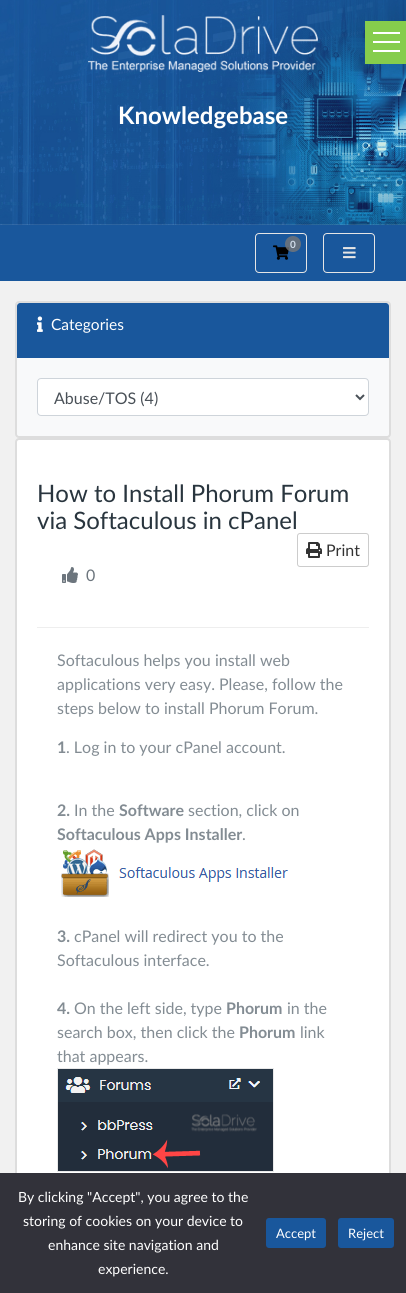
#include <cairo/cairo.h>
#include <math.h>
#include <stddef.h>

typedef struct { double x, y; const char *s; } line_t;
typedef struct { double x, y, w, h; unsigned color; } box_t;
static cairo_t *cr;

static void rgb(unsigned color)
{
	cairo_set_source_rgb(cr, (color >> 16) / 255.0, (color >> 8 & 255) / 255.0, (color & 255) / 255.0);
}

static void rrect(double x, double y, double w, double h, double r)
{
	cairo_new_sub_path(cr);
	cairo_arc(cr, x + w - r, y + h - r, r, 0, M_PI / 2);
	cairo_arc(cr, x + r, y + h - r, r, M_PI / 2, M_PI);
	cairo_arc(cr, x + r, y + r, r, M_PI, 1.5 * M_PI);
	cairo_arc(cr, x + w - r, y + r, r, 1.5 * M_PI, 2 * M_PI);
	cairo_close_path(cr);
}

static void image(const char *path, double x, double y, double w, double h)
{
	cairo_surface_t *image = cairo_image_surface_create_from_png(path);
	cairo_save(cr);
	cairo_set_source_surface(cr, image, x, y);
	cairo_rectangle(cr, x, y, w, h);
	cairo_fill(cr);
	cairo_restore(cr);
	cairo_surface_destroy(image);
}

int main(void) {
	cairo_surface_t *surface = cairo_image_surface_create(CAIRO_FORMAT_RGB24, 406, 1293);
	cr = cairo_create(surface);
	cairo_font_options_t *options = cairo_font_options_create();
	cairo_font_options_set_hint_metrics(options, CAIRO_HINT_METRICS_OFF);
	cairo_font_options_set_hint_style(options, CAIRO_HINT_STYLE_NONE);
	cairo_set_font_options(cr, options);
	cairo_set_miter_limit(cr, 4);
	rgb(0xf1f1f1);
	cairo_paint(cr);
	image("img/2.png", 0, 0, 406, 225);
	image("img/1.png", 88, 15, 230, 57);
	{
		static const box_t items[] = {
			{365, 21, 41, 43, 0x86cd4c},
			{373, 32, 27, 2, 0xffffff},
			{373, 41, 27, 2, 0xffffff},
			{373, 50, 27, 2, 0xffffff},
			{0, 225, 406, 56, 0x19579c},
		};
		for (size_t i = 0; i < sizeof items / sizeof *items; i++) {
			rgb(items[i].color);
			cairo_rectangle(cr, items[i].x, items[i].y, items[i].w, items[i].h);
			cairo_fill(cr);
		}
	}
	rrect(255.5, 233.5, 51, 39, 3.5);
	rgb(0xe5e5e5);
	cairo_set_line_width(cr, 1);
	cairo_stroke(cr);
	image("img/3.png", 273, 245, 17, 15);
	cairo_set_source_rgba(cr, 0.467, 0.467, 0.467, 0.8);
	cairo_arc(cr, 293, 244, 8, 0, 2 * M_PI);
	cairo_fill(cr);
	rrect(323.5, 233.5, 51, 39, 3.5);
	rgb(0xe5e5e5);
	cairo_stroke(cr);
	image("img/4.png", 343, 247, 13, 12);
	rgb(0xf8f9fa);
	rrect(16, 302, 374, 135, 3);
	cairo_fill_preserve(cr);
	rgb(0xdddddd);
	cairo_set_line_width(cr, 2);
	cairo_stroke(cr);
	rgb(0x19579c);
	cairo_new_path(cr);
	cairo_move_to(cr, 20, 303);
	cairo_line_to(cr, 386, 303);
	cairo_curve_to(cr, 387.5, 303, 389, 304.5, 389, 306);
	cairo_line_to(cr, 389, 358);
	cairo_line_to(cr, 17, 358);
	cairo_line_to(cr, 17, 306);
	cairo_curve_to(cr, 17, 304.5, 18.5, 303, 20, 303);
	cairo_close_path(cr);
	cairo_fill(cr);
	image("img/5.png", 37, 316, 6, 16);
	rgb(0xffffff);
	rrect(37.5, 378.5, 331, 37, 3.5);
	cairo_fill_preserve(cr);
	rgb(0xced4da);
	cairo_set_line_width(cr, 1);
	cairo_stroke(cr);
	cairo_new_path(cr);
	cairo_move_to(cr, 356, 395);
	cairo_line_to(cr, 360, 399);
	cairo_line_to(cr, 364, 395);
	rgb(0x495057);
	cairo_set_line_width(cr, 2);
	cairo_stroke(cr);
	rgb(0xffffff);
	rrect(16, 439, 374, 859, 3);
	cairo_fill_preserve(cr);
	rgb(0xdddddd);
	cairo_stroke(cr);
	rrect(297.5, 533.5, 71, 33, 2.5);
	rgb(0xcccccc);
	cairo_set_line_width(cr, 1);
	cairo_stroke(cr);
	image("img/6.png", 306, 542, 16, 16);
	image("img/7.png", 62, 567, 16, 16);
	rgb(0xeeeeee);
	cairo_rectangle(cr, 37, 627, 332, 1);
	cairo_fill(cr);
	image("img/8.png", 61, 849, 227, 48);
	image("img/9.png", 57, 1068, 217, 104);
	rgb(0x32323a);
	cairo_rectangle(cr, 0, 1173, 406, 120);
	cairo_fill(cr);
	rgb(0x19579c);
	rrect(266, 1218, 60, 30, 3);
	cairo_fill(cr);
	rrect(338, 1218, 56, 30, 3);
	cairo_fill(cr);
	cairo_select_font_face(cr, "Lato", CAIRO_FONT_SLANT_NORMAL, CAIRO_FONT_WEIGHT_BOLD);
	cairo_set_font_size(cr, 24);
	rgb(0xffffff);
	cairo_move_to(cr, 118, 124);
	cairo_show_text(cr, "Knowledgebase");
	cairo_set_font_size(cr, 10);
	rgb(0xd1ddeb);
	cairo_move_to(cr, 290, 248);
	cairo_show_text(cr, "0");
	cairo_select_font_face(cr, "Lato", CAIRO_FONT_SLANT_NORMAL, CAIRO_FONT_WEIGHT_NORMAL);
	cairo_set_font_size(cr, 15.5);
	rgb(0xffffff);
	cairo_move_to(cr, 51, 330);
	cairo_show_text(cr, "Categories");
	cairo_set_font_size(cr, 16);
	rgb(0x495057);
	cairo_move_to(cr, 54, 404);
	cairo_show_text(cr, "Abuse/TOS (4)");
	cairo_set_font_size(cr, 24);
	rgb(0x29353e);
	cairo_move_to(cr, 37, 502);
	cairo_show_text(cr, "How to Install Phorum Forum");
	cairo_move_to(cr, 37, 529);
	cairo_show_text(cr, "via Softaculous in cPanel");
	cairo_set_font_size(cr, 16);
	rgb(0x333333);
	cairo_move_to(cr, 326, 556);
	cairo_show_text(cr, "Print");
	rgb(0x6c757d);
	cairo_move_to(cr, 86, 581);
	cairo_show_text(cr, "0");
	rgb(0x838c93);
	{
		static const line_t items[] = {
			{57, 666, "Softaculous helps you install web"},
			{57, 690, "applications very easy. Please, follow the"},
			{57, 714, "steps below to install Phorum Forum."},
		};
		for (size_t i = 0; i < sizeof items / sizeof *items; i++) {
			cairo_move_to(cr, items[i].x, items[i].y);
			cairo_show_text(cr, items[i].s);
		}
	}
	cairo_select_font_face(cr, "Lato", CAIRO_FONT_SLANT_NORMAL, CAIRO_FONT_WEIGHT_BOLD);
	cairo_move_to(cr, 57, 753);
	cairo_show_text(cr, "1");
	cairo_select_font_face(cr, "Lato", CAIRO_FONT_SLANT_NORMAL, CAIRO_FONT_WEIGHT_NORMAL);
	cairo_move_to(cr, 66, 753);
	cairo_show_text(cr, ". Log in to your cPanel account.");
	cairo_select_font_face(cr, "Lato", CAIRO_FONT_SLANT_NORMAL, CAIRO_FONT_WEIGHT_BOLD);
	cairo_move_to(cr, 57, 816);
	cairo_show_text(cr, "2.");
	cairo_select_font_face(cr, "Lato", CAIRO_FONT_SLANT_NORMAL, CAIRO_FONT_WEIGHT_NORMAL);
	cairo_move_to(cr, 74, 816);
	cairo_show_text(cr, "In the");
	cairo_select_font_face(cr, "Lato", CAIRO_FONT_SLANT_NORMAL, CAIRO_FONT_WEIGHT_BOLD);
	cairo_move_to(cr, 119, 816);
	cairo_show_text(cr, "Software");
	cairo_select_font_face(cr, "Lato", CAIRO_FONT_SLANT_NORMAL, CAIRO_FONT_WEIGHT_NORMAL);
	cairo_move_to(cr, 188, 816);
	cairo_show_text(cr, "section, click on");
	cairo_select_font_face(cr, "Lato", CAIRO_FONT_SLANT_NORMAL, CAIRO_FONT_WEIGHT_BOLD);
	cairo_move_to(cr, 57, 840);
	cairo_show_text(cr, "Softaculous Apps Installer");
	cairo_select_font_face(cr, "Lato", CAIRO_FONT_SLANT_NORMAL, CAIRO_FONT_WEIGHT_NORMAL);
	cairo_move_to(cr, 242, 840);
	cairo_show_text(cr, ".");
	cairo_select_font_face(cr, "Lato", CAIRO_FONT_SLANT_NORMAL, CAIRO_FONT_WEIGHT_BOLD);
	cairo_move_to(cr, 57, 942);
	cairo_show_text(cr, "3.");
	cairo_select_font_face(cr, "Lato", CAIRO_FONT_SLANT_NORMAL, CAIRO_FONT_WEIGHT_NORMAL);
	cairo_move_to(cr, 74, 942);
	cairo_show_text(cr, "cPanel will redirect you to the");
	cairo_move_to(cr, 57, 966);
	cairo_show_text(cr, "Softaculous interface.");
	cairo_select_font_face(cr, "Lato", CAIRO_FONT_SLANT_NORMAL, CAIRO_FONT_WEIGHT_BOLD);
	cairo_move_to(cr, 57, 1014);
	cairo_show_text(cr, "4.");
	cairo_select_font_face(cr, "Lato", CAIRO_FONT_SLANT_NORMAL, CAIRO_FONT_WEIGHT_NORMAL);
	cairo_move_to(cr, 74, 1014);
	cairo_show_text(cr, "On the left side, type");
	cairo_select_font_face(cr, "Lato", CAIRO_FONT_SLANT_NORMAL, CAIRO_FONT_WEIGHT_BOLD);
	cairo_move_to(cr, 226, 1014);
	cairo_show_text(cr, "Phorum");
	cairo_select_font_face(cr, "Lato", CAIRO_FONT_SLANT_NORMAL, CAIRO_FONT_WEIGHT_NORMAL);
	cairo_move_to(cr, 287, 1014);
	cairo_show_text(cr, "in the");
	cairo_move_to(cr, 57, 1038);
	cairo_show_text(cr, "search box, then click the");
	cairo_select_font_face(cr, "Lato", CAIRO_FONT_SLANT_NORMAL, CAIRO_FONT_WEIGHT_BOLD);
	cairo_move_to(cr, 239, 1038);
	cairo_show_text(cr, "Phorum");
	cairo_select_font_face(cr, "Lato", CAIRO_FONT_SLANT_NORMAL, CAIRO_FONT_WEIGHT_NORMAL);
	cairo_move_to(cr, 300, 1038);
	cairo_show_text(cr, "link");
	cairo_move_to(cr, 57, 1062);
	cairo_show_text(cr, "that appears.");
	cairo_set_font_size(cr, 14);
	rgb(0xffffff);
	{
		static const line_t items[] = {
			{18, 1202, "By clicking \"Accept\", you agree to the"},
			{23, 1226, "storing of cookies on your device to"},
			{48, 1250, "enhance site navigation and"},
			{98, 1274, "experience."},
		};
		for (size_t i = 0; i < sizeof items / sizeof *items; i++) {
			cairo_move_to(cr, items[i].x, items[i].y);
			cairo_show_text(cr, items[i].s);
		}
	}
	cairo_set_font_size(cr, 13);
	cairo_move_to(cr, 276, 1238);
	cairo_show_text(cr, "Accept");
	cairo_move_to(cr, 348, 1238);
	cairo_show_text(cr, "Reject");
	cairo_surface_write_to_png(surface, "page.png");
	cairo_font_options_destroy(options);
	cairo_destroy(cr);
	cairo_surface_destroy(surface);
	return 0;
}
